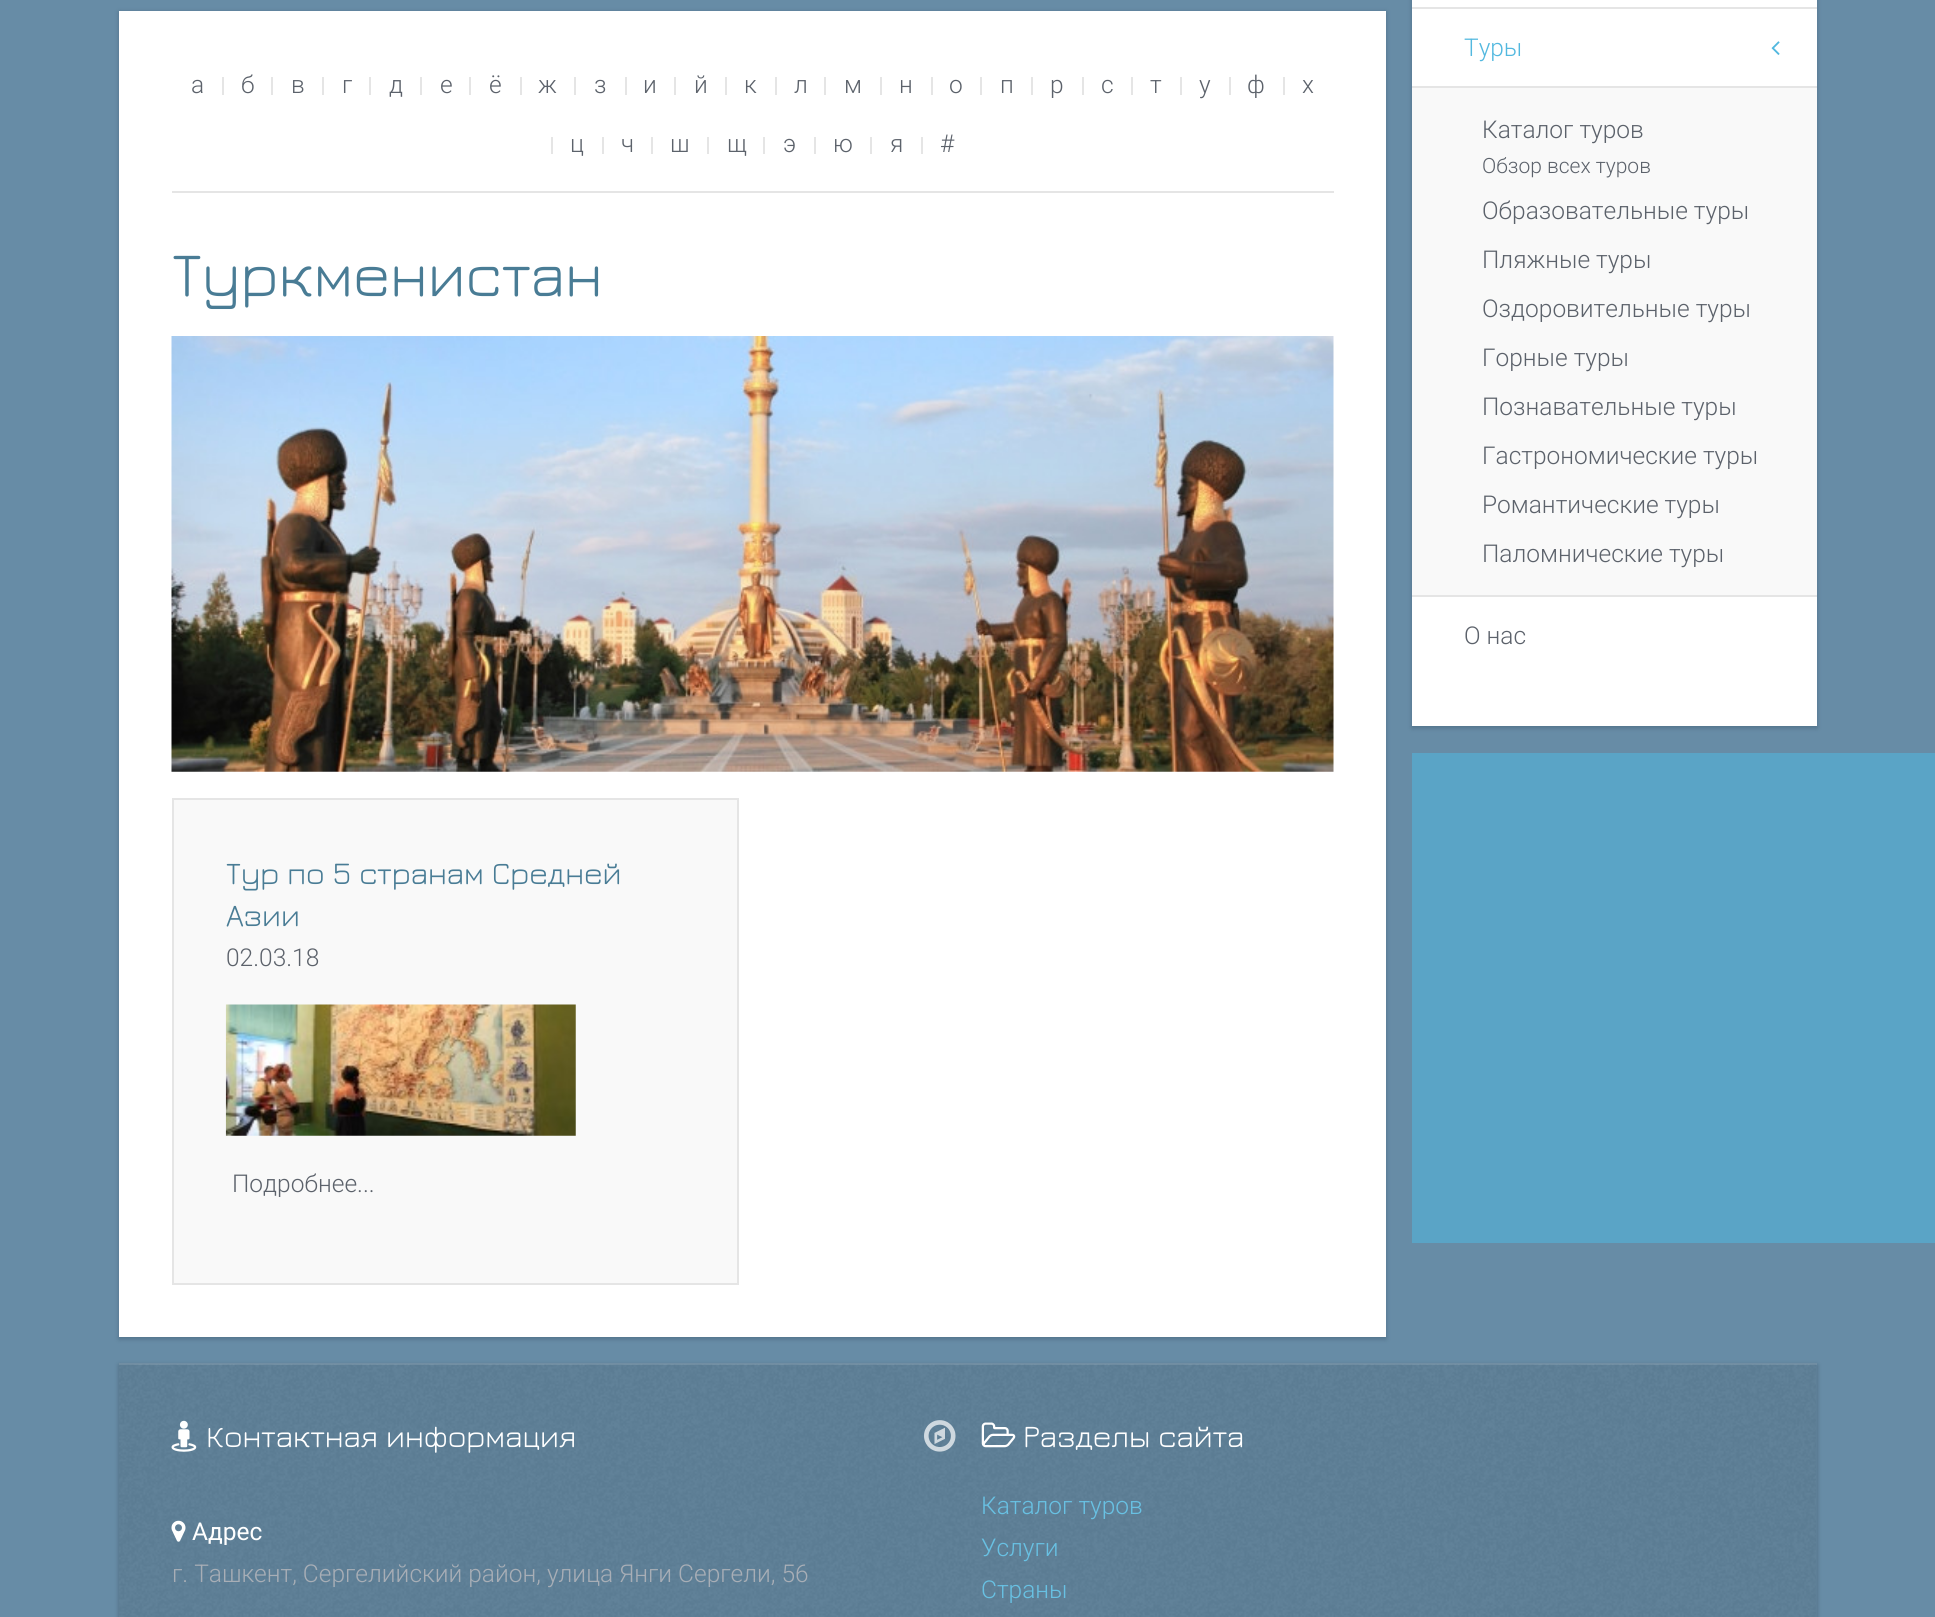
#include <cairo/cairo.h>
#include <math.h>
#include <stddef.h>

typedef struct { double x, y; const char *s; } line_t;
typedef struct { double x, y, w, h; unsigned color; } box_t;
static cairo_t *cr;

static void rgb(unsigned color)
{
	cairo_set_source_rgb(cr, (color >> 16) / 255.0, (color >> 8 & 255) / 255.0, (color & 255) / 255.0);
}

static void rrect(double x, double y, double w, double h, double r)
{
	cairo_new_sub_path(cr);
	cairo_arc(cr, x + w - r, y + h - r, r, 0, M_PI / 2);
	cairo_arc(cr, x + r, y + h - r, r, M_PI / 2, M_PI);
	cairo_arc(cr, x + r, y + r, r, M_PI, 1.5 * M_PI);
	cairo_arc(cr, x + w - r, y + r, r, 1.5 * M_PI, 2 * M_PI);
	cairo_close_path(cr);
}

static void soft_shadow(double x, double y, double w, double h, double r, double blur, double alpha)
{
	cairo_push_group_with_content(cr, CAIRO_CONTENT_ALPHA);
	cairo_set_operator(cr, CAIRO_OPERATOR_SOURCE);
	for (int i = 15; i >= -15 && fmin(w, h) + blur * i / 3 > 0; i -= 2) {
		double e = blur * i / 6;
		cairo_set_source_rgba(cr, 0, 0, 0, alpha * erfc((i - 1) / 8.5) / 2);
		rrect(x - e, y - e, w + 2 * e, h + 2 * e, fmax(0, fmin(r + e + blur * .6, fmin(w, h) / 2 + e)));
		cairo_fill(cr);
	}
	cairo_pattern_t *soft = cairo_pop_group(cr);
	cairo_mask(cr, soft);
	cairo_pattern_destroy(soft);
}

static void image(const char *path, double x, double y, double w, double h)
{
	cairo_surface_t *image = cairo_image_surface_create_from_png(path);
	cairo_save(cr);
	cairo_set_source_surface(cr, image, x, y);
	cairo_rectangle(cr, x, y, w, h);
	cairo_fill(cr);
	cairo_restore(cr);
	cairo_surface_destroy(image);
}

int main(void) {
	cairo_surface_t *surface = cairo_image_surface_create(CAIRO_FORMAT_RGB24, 1935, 1617);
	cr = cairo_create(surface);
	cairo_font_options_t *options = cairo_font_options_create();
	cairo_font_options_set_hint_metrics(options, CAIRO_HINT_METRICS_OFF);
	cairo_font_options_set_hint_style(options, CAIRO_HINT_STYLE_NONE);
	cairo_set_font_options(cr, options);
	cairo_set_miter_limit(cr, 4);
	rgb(0x678ca6);
	cairo_paint(cr);
	rgb(0x1e3246);
	soft_shadow(119, 12, 1267, 1327, 0, 2.5, 0.3);
	{
		static const box_t items[] = {
			{119, 11, 1267, 1326, 0xffffff},
			{222, 77, 2, 18, 0xe5e5e5},
			{271, 77, 2, 18, 0xe5e5e5},
			{322, 77, 2, 18, 0xe5e5e5},
			{369, 77, 2, 18, 0xe5e5e5},
			{420, 77, 2, 18, 0xe5e5e5},
			{469, 77, 2, 18, 0xe5e5e5},
			{520, 77, 2, 18, 0xe5e5e5},
			{574, 77, 2, 18, 0xe5e5e5},
			{625, 77, 2, 18, 0xe5e5e5},
			{674, 77, 2, 18, 0xe5e5e5},
			{725, 77, 2, 18, 0xe5e5e5},
			{775, 77, 2, 18, 0xe5e5e5},
			{824, 77, 2, 18, 0xe5e5e5},
			{880, 77, 2, 18, 0xe5e5e5},
			{931, 77, 2, 18, 0xe5e5e5},
			{980, 77, 2, 18, 0xe5e5e5},
			{1031, 77, 2, 18, 0xe5e5e5},
			{1082, 77, 2, 18, 0xe5e5e5},
			{1131, 77, 2, 18, 0xe5e5e5},
			{1180, 77, 2, 18, 0xe5e5e5},
			{1229, 77, 2, 18, 0xe5e5e5},
			{1283, 77, 2, 18, 0xe5e5e5},
			{551, 137, 2, 17, 0xe5e5e5},
			{602, 137, 2, 17, 0xe5e5e5},
			{651, 137, 2, 17, 0xe5e5e5},
			{707, 137, 2, 17, 0xe5e5e5},
			{763, 137, 2, 17, 0xe5e5e5},
			{814, 137, 2, 17, 0xe5e5e5},
			{870, 137, 2, 17, 0xe5e5e5},
			{921, 137, 2, 17, 0xe5e5e5},
			{172, 191, 1162, 2, 0xe5e5e5},
		};
		for (size_t i = 0; i < sizeof items / sizeof *items; i++) {
			rgb(items[i].color);
			cairo_rectangle(cr, items[i].x, items[i].y, items[i].w, items[i].h);
			cairo_fill(cr);
		}
	}
	image("img/1.png", 171, 336, 1163, 436);
	rgb(0xf9f9f9);
	cairo_rectangle(cr, 173, 799, 565, 485);
	cairo_fill_preserve(cr);
	rgb(0xe5e5e5);
	cairo_stroke(cr);
	image("img/2.png", 225, 1004, 351, 132);
	rgb(0x1e3246);
	soft_shadow(1412, -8, 405, 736, 0, 2.5, 0.3);
	rgb(0xffffff);
	cairo_rectangle(cr, 1412, 0, 405, 726);
	cairo_fill(cr);
	rgb(0xe5e5e5);
	cairo_rectangle(cr, 1412, 7, 405, 2);
	cairo_fill(cr);
	image("img/3.png", 1771, 41, 9, 14);
	{
		static const box_t items[] = {
			{1412, 88, 405, 507, 0xf9f9f9},
			{1412, 86, 405, 2, 0xe5e5e5},
			{1412, 595, 405, 2, 0xe5e5e5},
			{1412, 753, 523, 490, 0x5aa4c6},
		};
		for (size_t i = 0; i < sizeof items / sizeof *items; i++) {
			rgb(items[i].color);
			cairo_rectangle(cr, items[i].x, items[i].y, items[i].w, items[i].h);
			cairo_fill(cr);
		}
	}
	cairo_save(cr);
	cairo_set_fill_rule(cr, CAIRO_FILL_RULE_EVEN_ODD);
	cairo_new_path(cr);
	cairo_move_to(cr, 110, 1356);
	cairo_line_to(cr, 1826, 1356);
	cairo_line_to(cr, 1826, 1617);
	cairo_line_to(cr, 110, 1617);
	cairo_close_path(cr);
	cairo_move_to(cr, 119, 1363);
	cairo_line_to(cr, 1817, 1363);
	cairo_line_to(cr, 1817, 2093);
	cairo_line_to(cr, 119, 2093);
	cairo_close_path(cr);
	cairo_clip(cr);
	rgb(0x0f1822);
	soft_shadow(119, 1365, 1698, 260, 0, 2.5, 0.3);
	cairo_restore(cr);
	cairo_set_source_rgba(cr, 0.176, 0.216, 0.275, 0.15);
	cairo_rectangle(cr, 119, 1363, 1698, 254);
	cairo_fill(cr);
	image("img/4.png", 119, 1364, 1697, 253);
	cairo_set_source_rgba(cr, 1, 1, 1, 0.12);
	cairo_rectangle(cr, 119, 1363, 1698, 2);
	cairo_fill(cr);
	image("img/5.png", 171, 1420, 26, 32);
	image("img/6.png", 924, 1420, 32, 32);
	image("img/7.png", 171, 1520, 15, 22);
	image("img/8.png", 981, 1422, 35, 26);
	cairo_select_font_face(cr, "Roboto Light", CAIRO_FONT_SLANT_NORMAL, CAIRO_FONT_WEIGHT_NORMAL);
	cairo_set_font_size(cr, 24.5);
	rgb(0x5c626b);
	{
		static const line_t items[] = {
			{191, 93, "а"},
			{241, 93, "б"},
			{291, 93, "в"},
			{342, 93, "г"},
			{389, 93, "д"},
			{440, 93, "е"},
			{489, 93, "ё"},
			{538, 93, "ж"},
			{594, 93, "з"},
			{643, 93, "и"},
			{694, 93, "й"},
			{744, 93, "к"},
			{794, 93, "л"},
			{844, 93, "м"},
			{899, 93, "н"},
			{949, 93, "о"},
			{1000, 93, "п"},
			{1050, 93, "р"},
			{1101, 93, "с"},
			{1150, 93, "т"},
			{1199, 93, "у"},
			{1247, 93, "ф"},
			{1302, 93, "х"},
			{570, 152, "ц"},
			{621, 152, "ч"},
			{670, 152, "ш"},
			{727, 152, "щ"},
			{783, 152, "э"},
			{833, 152, "ю"},
			{890, 152, "я"},
			{940, 152, "#"},
		};
		for (size_t i = 0; i < sizeof items / sizeof *items; i++) {
			cairo_move_to(cr, items[i].x, items[i].y);
			cairo_show_text(cr, items[i].s);
		}
	}
	cairo_select_font_face(cr, "Jura Light", CAIRO_FONT_SLANT_NORMAL, CAIRO_FONT_WEIGHT_NORMAL);
	cairo_set_font_size(cr, 63);
	rgb(0x497c95);
	cairo_move_to(cr, 172, 296);
	cairo_show_text(cr, "Туркменистан");
	cairo_set_font_size(cr, 31.5);
	cairo_move_to(cr, 226, 884);
	cairo_show_text(cr, "Тур по 5 странам Средней");
	cairo_move_to(cr, 226, 926);
	cairo_show_text(cr, "Азии");
	cairo_select_font_face(cr, "Roboto Light", CAIRO_FONT_SLANT_NORMAL, CAIRO_FONT_WEIGHT_NORMAL);
	cairo_set_font_size(cr, 24.5);
	rgb(0x5c626b);
	cairo_move_to(cr, 226, 966);
	cairo_show_text(cr, "02.03.18");
	cairo_move_to(cr, 232, 1192);
	cairo_show_text(cr, "Подробнее...");
	rgb(0x52b8df);
	cairo_move_to(cr, 1464, 56);
	cairo_show_text(cr, "Туры");
	rgb(0x5c626b);
	cairo_move_to(cr, 1482, 138);
	cairo_show_text(cr, "Каталог туров");
	cairo_set_font_size(cr, 21);
	cairo_move_to(cr, 1482, 173);
	cairo_show_text(cr, "Обзор всех туров");
	cairo_set_font_size(cr, 24.5);
	{
		static const line_t items[] = {
			{1482, 219, "Образовательные туры"},
			{1482, 268, "Пляжные туры"},
			{1482, 317, "Оздоровительные туры"},
			{1482, 366, "Горные туры"},
			{1482, 415, "Познавательные туры"},
			{1482, 464, "Гастрономические туры"},
			{1482, 513, "Романтические туры"},
			{1482, 562, "Паломнические туры"},
			{1464, 644, "О нас"},
		};
		for (size_t i = 0; i < sizeof items / sizeof *items; i++) {
			cairo_move_to(cr, items[i].x, items[i].y);
			cairo_show_text(cr, items[i].s);
		}
	}
	cairo_select_font_face(cr, "Jura Light", CAIRO_FONT_SLANT_NORMAL, CAIRO_FONT_WEIGHT_NORMAL);
	cairo_set_font_size(cr, 31.5);
	rgb(0xffffff);
	cairo_move_to(cr, 206, 1447);
	cairo_show_text(cr, "Контактная информация");
	cairo_select_font_face(cr, "Roboto", CAIRO_FONT_SLANT_NORMAL, CAIRO_FONT_WEIGHT_NORMAL);
	cairo_set_font_size(cr, 24.5);
	cairo_move_to(cr, 192, 1540);
	cairo_show_text(cr, "Адрес");
	cairo_select_font_face(cr, "Roboto Light", CAIRO_FONT_SLANT_NORMAL, CAIRO_FONT_WEIGHT_NORMAL);
	rgb(0xa8aeb6);
	cairo_move_to(cr, 172, 1582);
	cairo_show_text(cr, "г. Ташкент, Сергелийский район, улица Янги Сергели, 56");
	cairo_select_font_face(cr, "Jura Light", CAIRO_FONT_SLANT_NORMAL, CAIRO_FONT_WEIGHT_NORMAL);
	cairo_set_font_size(cr, 31.5);
	rgb(0xffffff);
	cairo_move_to(cr, 1023, 1447);
	cairo_show_text(cr, "Разделы сайта");
	cairo_select_font_face(cr, "Roboto Light", CAIRO_FONT_SLANT_NORMAL, CAIRO_FONT_WEIGHT_NORMAL);
	cairo_set_font_size(cr, 24.5);
	rgb(0x68c1e3);
	{
		static const line_t items[] = {
			{981, 1514, "Каталог туров"},
			{981, 1556, "Услуги"},
			{981, 1598, "Страны"},
		};
		for (size_t i = 0; i < sizeof items / sizeof *items; i++) {
			cairo_move_to(cr, items[i].x, items[i].y);
			cairo_show_text(cr, items[i].s);
		}
	}
	cairo_surface_write_to_png(surface, "page.png");
	cairo_font_options_destroy(options);
	cairo_destroy(cr);
	cairo_surface_destroy(surface);
	return 0;
}
